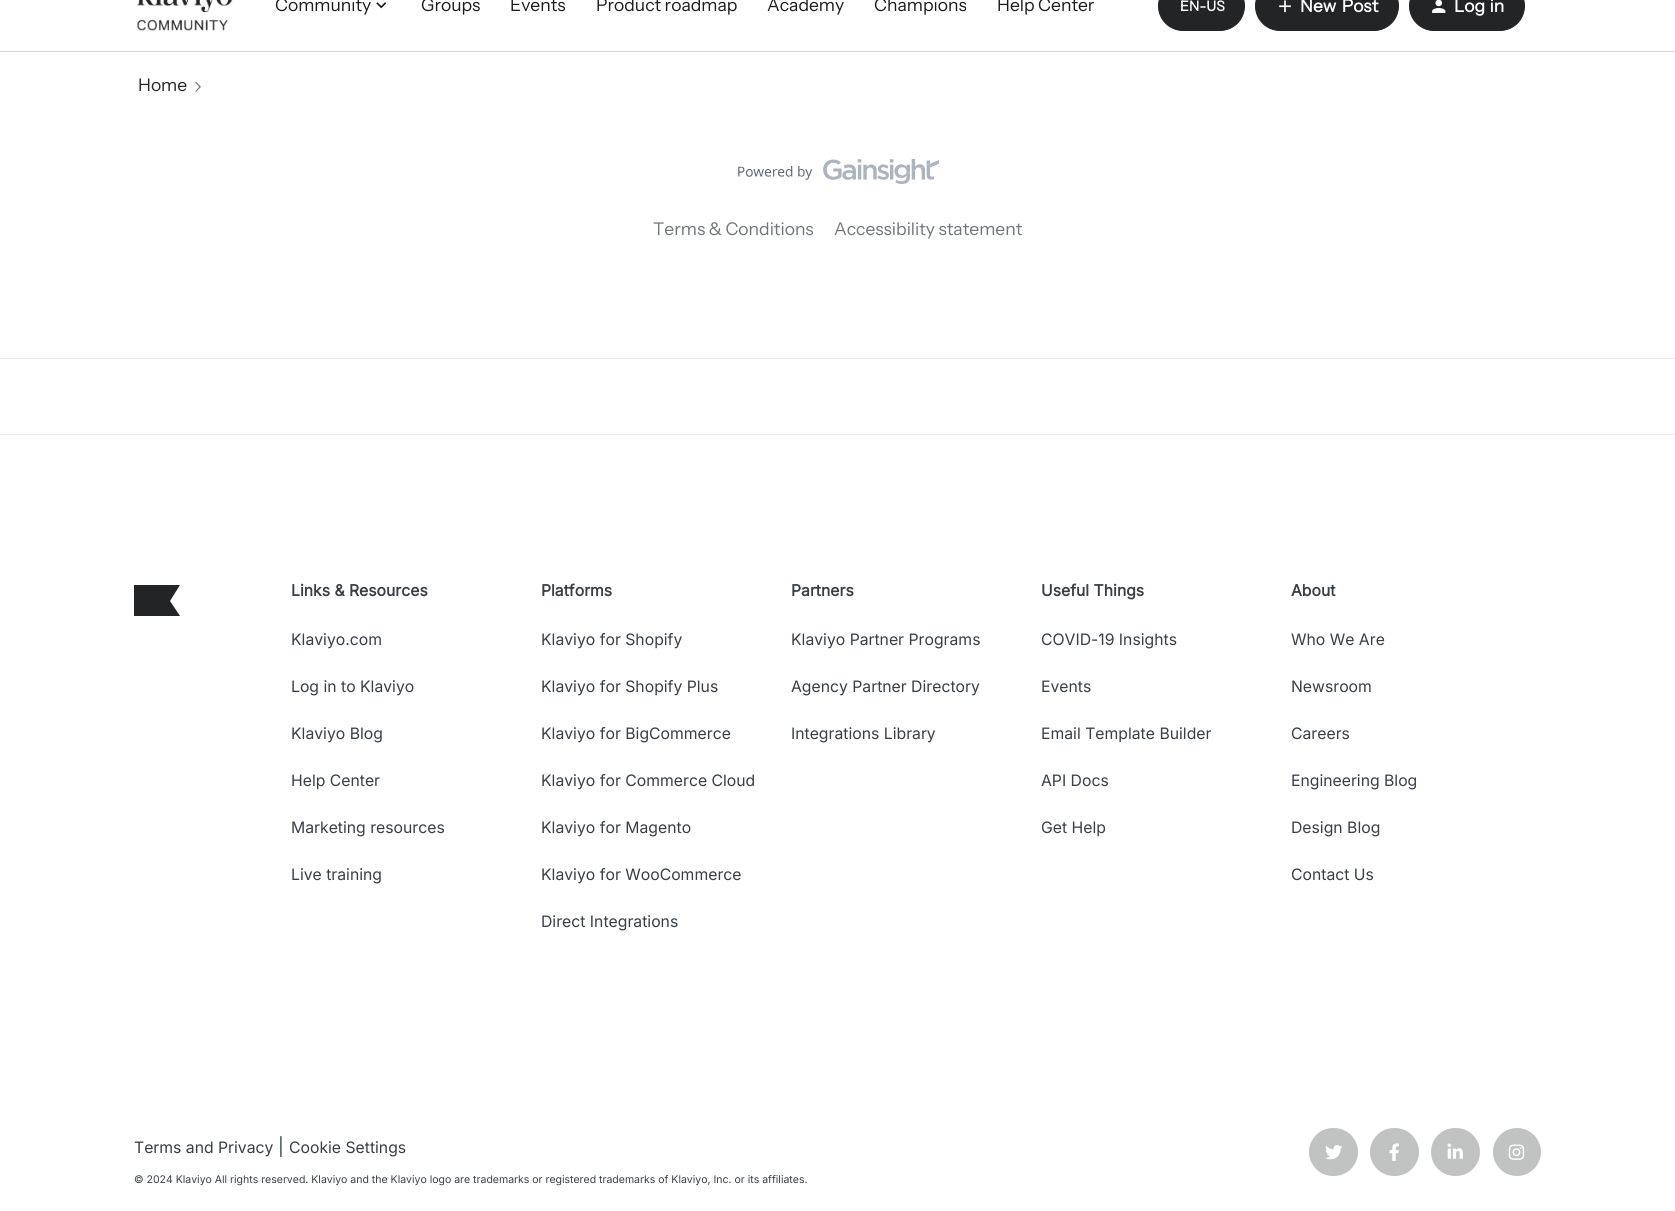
#include <cairo/cairo.h>
#include <math.h>
#include <stddef.h>

typedef struct { double x, y; const char *s; } line_t;
static cairo_t *cr;

static void rgb(unsigned color)
{
	cairo_set_source_rgb(cr, (color >> 16) / 255.0, (color >> 8 & 255) / 255.0, (color & 255) / 255.0);
}

static void tracked(double x, double y, const char *s, double letter, double word)
{
	cairo_move_to(cr, x, y);
	while (*s) {
		char ch[5] = {0};
		int n = 0;
		do ch[n++] = *s++; while ((*s & 0xC0) == 0x80);
		cairo_show_text(cr, ch);
		cairo_rel_move_to(cr, letter + word * (*ch == ' '), 0);
	}
}

static void rrect(double x, double y, double w, double h, double r)
{
	cairo_new_sub_path(cr);
	cairo_arc(cr, x + w - r, y + h - r, r, 0, M_PI / 2);
	cairo_arc(cr, x + r, y + h - r, r, M_PI / 2, M_PI);
	cairo_arc(cr, x + r, y + r, r, M_PI, 1.5 * M_PI);
	cairo_arc(cr, x + w - r, y + r, r, 1.5 * M_PI, 2 * M_PI);
	cairo_close_path(cr);
}

static void image(const char *path, double x, double y, double w, double h)
{
	cairo_surface_t *image = cairo_image_surface_create_from_png(path);
	cairo_save(cr);
	cairo_set_source_surface(cr, image, x, y);
	cairo_rectangle(cr, x, y, w, h);
	cairo_fill(cr);
	cairo_restore(cr);
	cairo_surface_destroy(image);
}

int main(void) {
	cairo_surface_t *surface = cairo_image_surface_create(CAIRO_FORMAT_RGB24, 1675, 1211);
	cr = cairo_create(surface);
	cairo_font_options_t *options = cairo_font_options_create();
	cairo_font_options_set_hint_metrics(options, CAIRO_HINT_METRICS_OFF);
	cairo_font_options_set_hint_style(options, CAIRO_HINT_STYLE_NONE);
	cairo_set_font_options(cr, options);
	cairo_set_miter_limit(cr, 4);
	rgb(0xffffff);
	cairo_paint(cr);
	rgb(0xd5d7db);
	cairo_rectangle(cr, 0, 51, 1675, 1);
	cairo_fill(cr);
	image("img/1.png", 137, 0, 96, 31);
	image("img/2.png", 376, 2, 11, 7);
	rgb(0x232426);
	rrect(1158.5, -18.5, 86, 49, 24.5);
	cairo_fill_preserve(cr);
	cairo_set_line_width(cr, 1);
	cairo_stroke(cr);
	rrect(1255.5, -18.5, 143, 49, 24.5);
	cairo_fill_preserve(cr);
	cairo_stroke(cr);
	image("img/3.png", 1279, 0, 12, 13);
	rrect(1409.5, -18.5, 115, 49, 24.5);
	cairo_fill_preserve(cr);
	cairo_stroke(cr);
	image("img/4.png", 1432, 0, 14, 13);
	image("img/5.png", 195, 82, 6, 10);
	image("img/6.png", 738, 159, 201, 25);
	rgb(0xe8e9e9);
	cairo_rectangle(cr, 0, 358, 1675, 1);
	cairo_fill(cr);
	cairo_rectangle(cr, 0, 434, 1675, 1);
	cairo_fill(cr);
	rgb(0x232426);
	cairo_new_path(cr);
	cairo_move_to(cr, 180, 616);
	cairo_line_to(cr, 134, 616);
	cairo_line_to(cr, 134, 585);
	cairo_line_to(cr, 180, 585);
	cairo_line_to(cr, 170, 601);
	cairo_close_path(cr);
	cairo_fill(cr);
	rgb(0xc1c3c3);
	rrect(1309, 1128, 49, 48, 24);
	cairo_fill(cr);
	image("img/7.png", 1325, 1145, 17, 15);
	rrect(1370, 1128, 49, 48, 24);
	cairo_fill(cr);
	image("img/8.png", 1389, 1143, 10, 18);
	rrect(1431, 1128, 49, 48, 24);
	cairo_fill(cr);
	image("img/9.png", 1447, 1143, 16, 16);
	cairo_arc(cr, 1517, 1152, 24, 0, 2 * M_PI);
	cairo_fill(cr);
	image("img/10.png", 1508, 1144, 17, 16);
	cairo_select_font_face(cr, "Instrument Sans", CAIRO_FONT_SLANT_NORMAL, CAIRO_FONT_WEIGHT_NORMAL);
	cairo_set_font_size(cr, 17.5);
	rgb(0x1a1a1a);
	{
		static const line_t items[] = {
			{275, 11, "Community"},
			{421, 11, "Groups"},
			{510, 11, "Events"},
			{596, 11, "Product roadmap"},
			{767, 11, "Academy"},
			{874, 11, "Champions"},
			{997, 11, "Help Center"},
		};
		for (size_t i = 0; i < sizeof items / sizeof *items; i++) {
			cairo_move_to(cr, items[i].x, items[i].y);
			cairo_show_text(cr, items[i].s);
		}
	}
	cairo_select_font_face(cr, "Instrument Sans", CAIRO_FONT_SLANT_NORMAL, CAIRO_FONT_WEIGHT_BOLD);
	cairo_set_font_size(cr, 14);
	rgb(0xffffff);
	cairo_move_to(cr, 1180, 11);
	cairo_show_text(cr, "EN-US");
	cairo_set_font_size(cr, 17.5);
	tracked(1300, 12, "New Post", 0, 2);
	tracked(1454, 12, "Log in", 0, 1);
	cairo_select_font_face(cr, "Instrument Sans", CAIRO_FONT_SLANT_NORMAL, CAIRO_FONT_WEIGHT_NORMAL);
	rgb(0x232426);
	cairo_move_to(cr, 138, 91);
	cairo_show_text(cr, "Home");
	rgb(0x707579);
	cairo_move_to(cr, 653, 235);
	cairo_show_text(cr, "Terms & Conditions");
	cairo_move_to(cr, 834, 235);
	cairo_show_text(cr, "Accessibility statement");
	cairo_select_font_face(cr, "Inter", CAIRO_FONT_SLANT_NORMAL, CAIRO_FONT_WEIGHT_BOLD);
	cairo_set_font_size(cr, 15.75);
	rgb(0x373f47);
	cairo_move_to(cr, 291, 596);
	cairo_show_text(cr, "Links & Resources");
	cairo_select_font_face(cr, "Inter", CAIRO_FONT_SLANT_NORMAL, CAIRO_FONT_WEIGHT_NORMAL);
	{
		static const line_t items[] = {
			{291, 645, "Klaviyo.com"},
			{291, 692, "Log in to Klaviyo"},
			{291, 739, "Klaviyo Blog"},
			{291, 786, "Help Center"},
			{291, 833, "Marketing resources"},
			{291, 880, "Live training"},
		};
		for (size_t i = 0; i < sizeof items / sizeof *items; i++) {
			cairo_move_to(cr, items[i].x, items[i].y);
			cairo_show_text(cr, items[i].s);
		}
	}
	cairo_select_font_face(cr, "Inter", CAIRO_FONT_SLANT_NORMAL, CAIRO_FONT_WEIGHT_BOLD);
	cairo_move_to(cr, 541, 596);
	cairo_show_text(cr, "Platforms");
	cairo_select_font_face(cr, "Inter", CAIRO_FONT_SLANT_NORMAL, CAIRO_FONT_WEIGHT_NORMAL);
	{
		static const line_t items[] = {
			{541, 645, "Klaviyo for Shopify"},
			{541, 692, "Klaviyo for Shopify Plus"},
			{541, 739, "Klaviyo for BigCommerce"},
			{541, 786, "Klaviyo for Commerce Cloud"},
			{541, 833, "Klaviyo for Magento"},
			{541, 880, "Klaviyo for WooCommerce"},
			{541, 927, "Direct Integrations"},
		};
		for (size_t i = 0; i < sizeof items / sizeof *items; i++) {
			cairo_move_to(cr, items[i].x, items[i].y);
			cairo_show_text(cr, items[i].s);
		}
	}
	cairo_select_font_face(cr, "Inter", CAIRO_FONT_SLANT_NORMAL, CAIRO_FONT_WEIGHT_BOLD);
	cairo_move_to(cr, 791, 596);
	cairo_show_text(cr, "Partners");
	cairo_select_font_face(cr, "Inter", CAIRO_FONT_SLANT_NORMAL, CAIRO_FONT_WEIGHT_NORMAL);
	{
		static const line_t items[] = {
			{791, 645, "Klaviyo Partner Programs"},
			{791, 692, "Agency Partner Directory"},
			{791, 739, "Integrations Library"},
		};
		for (size_t i = 0; i < sizeof items / sizeof *items; i++) {
			cairo_move_to(cr, items[i].x, items[i].y);
			cairo_show_text(cr, items[i].s);
		}
	}
	cairo_select_font_face(cr, "Inter", CAIRO_FONT_SLANT_NORMAL, CAIRO_FONT_WEIGHT_BOLD);
	cairo_move_to(cr, 1041, 596);
	cairo_show_text(cr, "Useful Things");
	cairo_select_font_face(cr, "Inter", CAIRO_FONT_SLANT_NORMAL, CAIRO_FONT_WEIGHT_NORMAL);
	{
		static const line_t items[] = {
			{1041, 645, "COVID-19 Insights"},
			{1041, 692, "Events"},
			{1041, 739, "Email Template Builder"},
			{1041, 786, "API Docs"},
			{1041, 833, "Get Help"},
		};
		for (size_t i = 0; i < sizeof items / sizeof *items; i++) {
			cairo_move_to(cr, items[i].x, items[i].y);
			cairo_show_text(cr, items[i].s);
		}
	}
	cairo_select_font_face(cr, "Inter", CAIRO_FONT_SLANT_NORMAL, CAIRO_FONT_WEIGHT_BOLD);
	cairo_move_to(cr, 1291, 596);
	cairo_show_text(cr, "About");
	cairo_select_font_face(cr, "Inter", CAIRO_FONT_SLANT_NORMAL, CAIRO_FONT_WEIGHT_NORMAL);
	{
		static const line_t items[] = {
			{1291, 645, "Who We Are"},
			{1291, 692, "Newsroom"},
			{1291, 739, "Careers"},
			{1291, 786, "Engineering Blog"},
			{1291, 833, "Design Blog"},
			{1291, 880, "Contact Us"},
			{134, 1153, "Terms and Privacy"},
		};
		for (size_t i = 0; i < sizeof items / sizeof *items; i++) {
			cairo_move_to(cr, items[i].x, items[i].y);
			cairo_show_text(cr, items[i].s);
		}
	}
	cairo_set_font_size(cr, 17.5);
	cairo_move_to(cr, 278, 1153);
	cairo_show_text(cr, "|");
	cairo_set_font_size(cr, 15.75);
	cairo_move_to(cr, 289, 1153);
	cairo_show_text(cr, "Cookie Settings");
	cairo_set_font_size(cr, 10.5);
	cairo_move_to(cr, 134, 1183);
	cairo_show_text(cr, "© 2024 Klaviyo All rights reserved. Klaviyo and the Klaviyo logo are trademarks or registered trademarks of Klaviyo, Inc. or its affiliates.");
	cairo_surface_write_to_png(surface, "page.png");
	cairo_font_options_destroy(options);
	cairo_destroy(cr);
	cairo_surface_destroy(surface);
	return 0;
}
